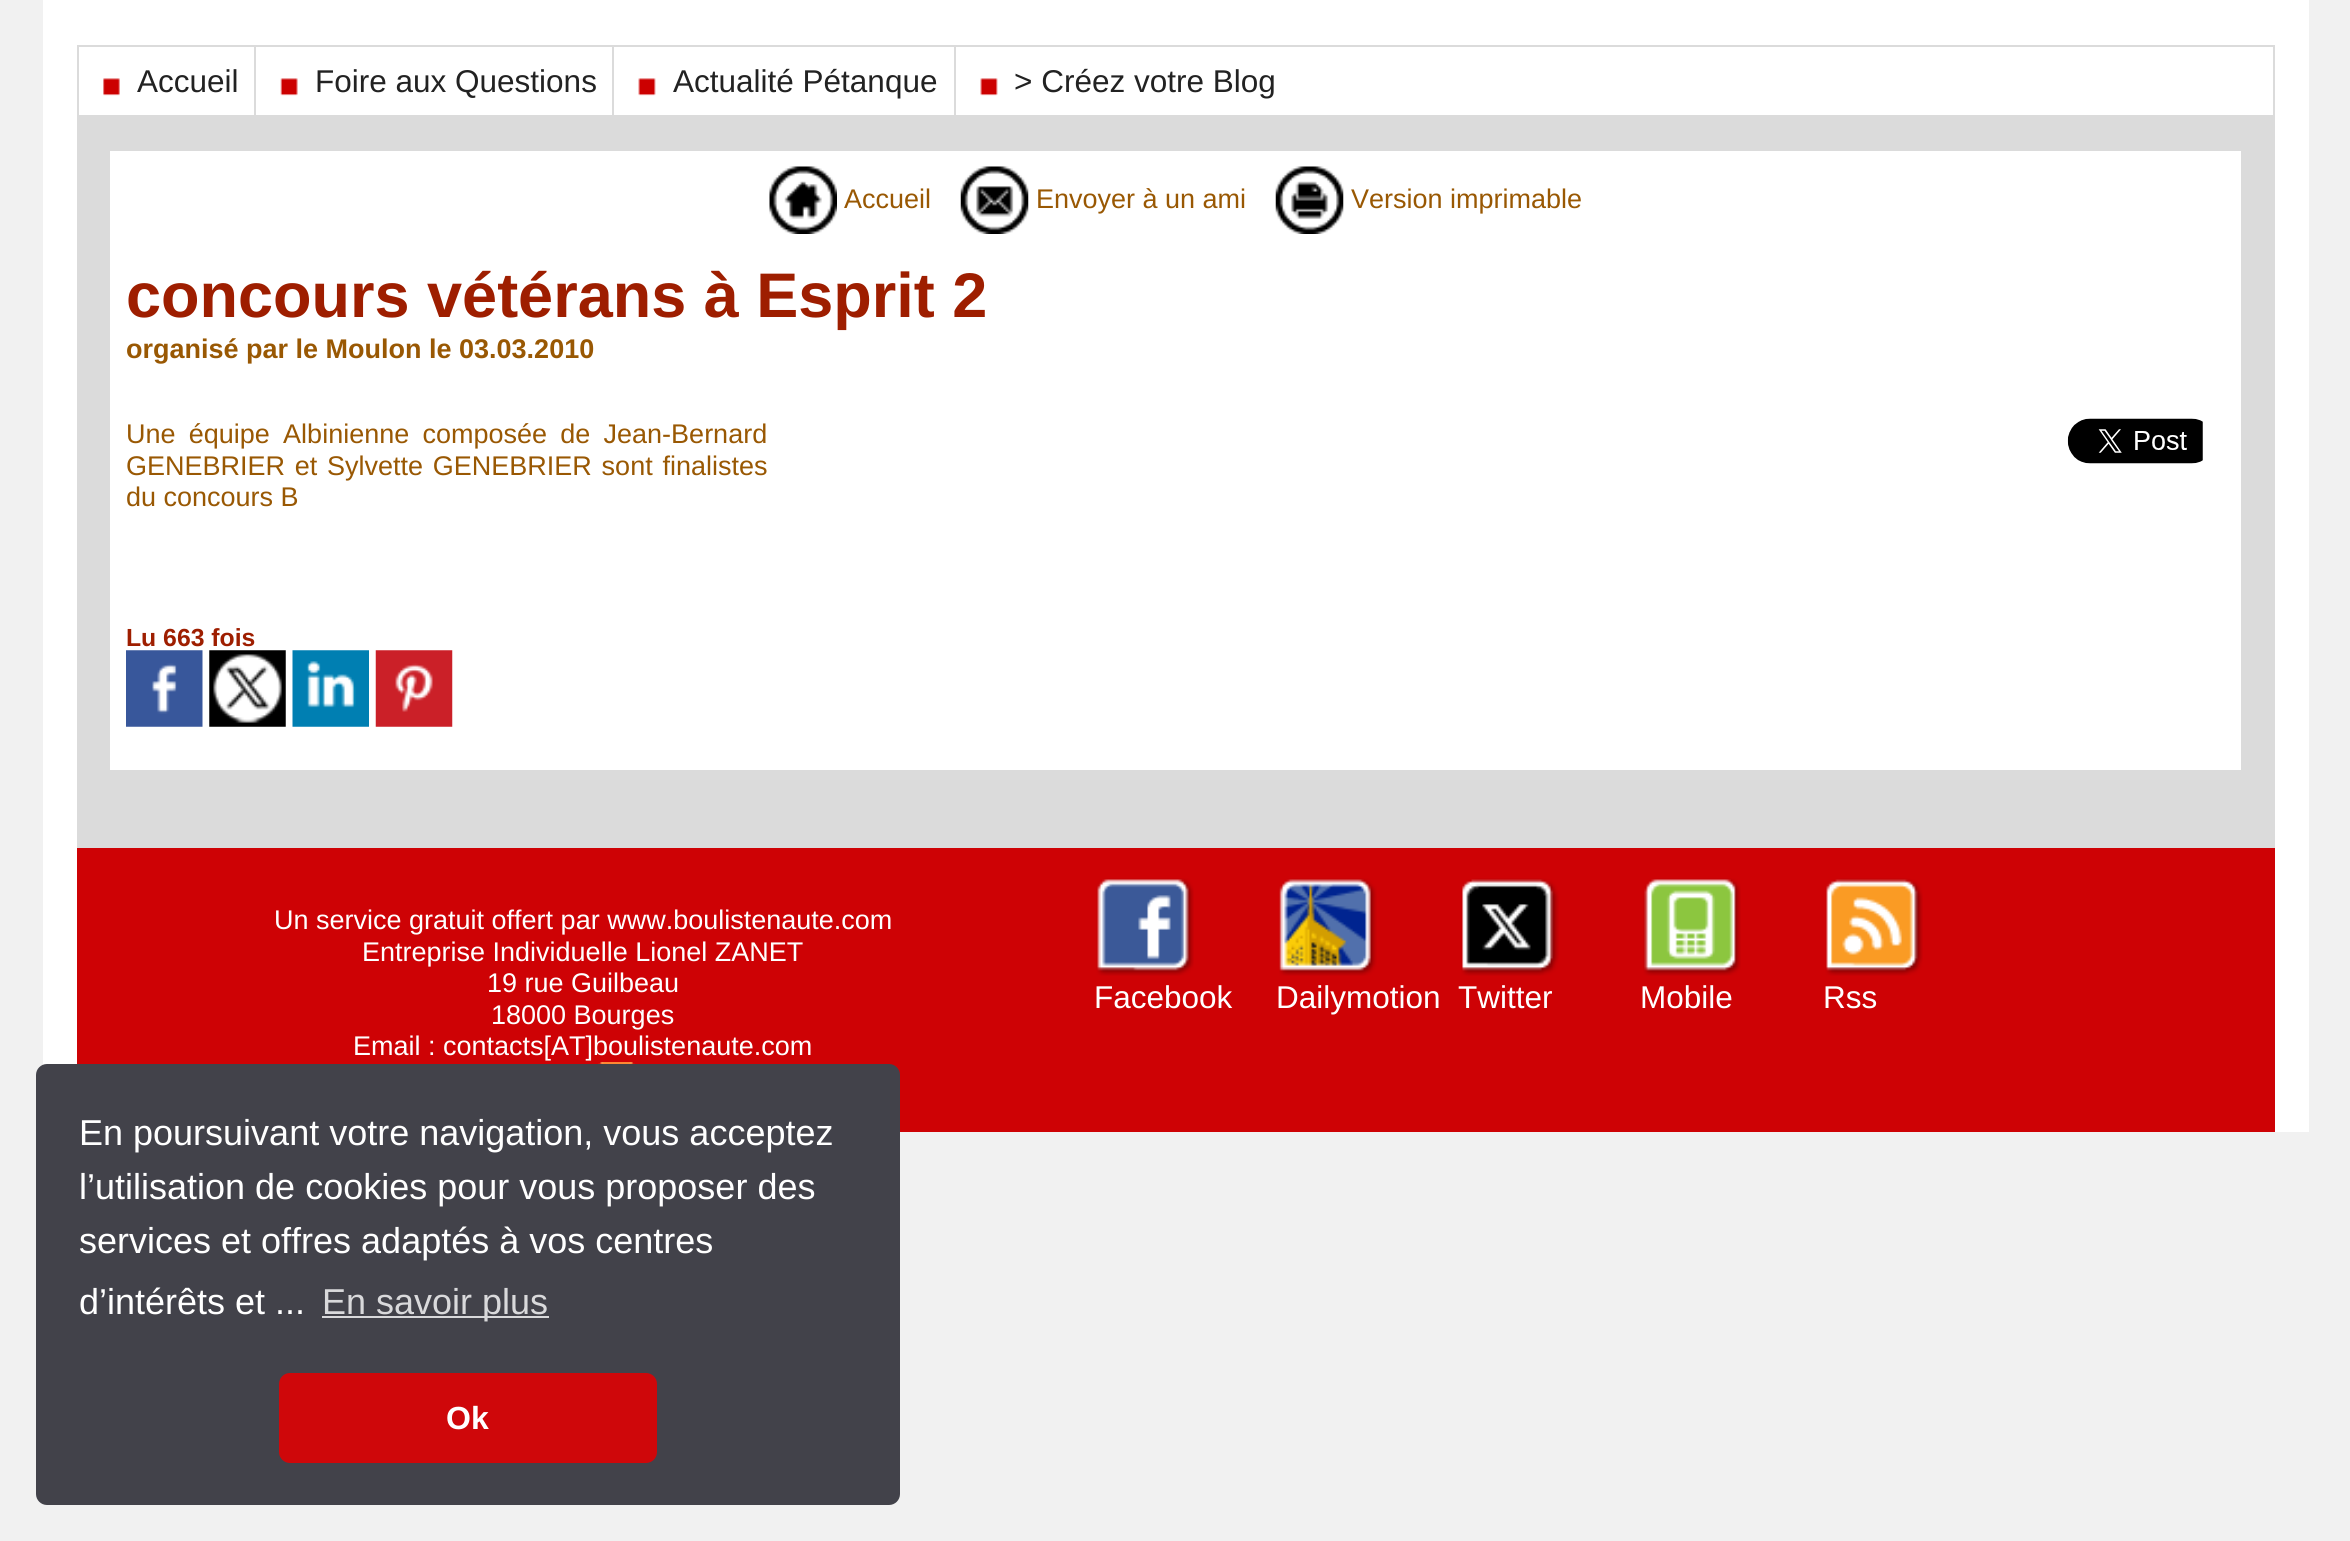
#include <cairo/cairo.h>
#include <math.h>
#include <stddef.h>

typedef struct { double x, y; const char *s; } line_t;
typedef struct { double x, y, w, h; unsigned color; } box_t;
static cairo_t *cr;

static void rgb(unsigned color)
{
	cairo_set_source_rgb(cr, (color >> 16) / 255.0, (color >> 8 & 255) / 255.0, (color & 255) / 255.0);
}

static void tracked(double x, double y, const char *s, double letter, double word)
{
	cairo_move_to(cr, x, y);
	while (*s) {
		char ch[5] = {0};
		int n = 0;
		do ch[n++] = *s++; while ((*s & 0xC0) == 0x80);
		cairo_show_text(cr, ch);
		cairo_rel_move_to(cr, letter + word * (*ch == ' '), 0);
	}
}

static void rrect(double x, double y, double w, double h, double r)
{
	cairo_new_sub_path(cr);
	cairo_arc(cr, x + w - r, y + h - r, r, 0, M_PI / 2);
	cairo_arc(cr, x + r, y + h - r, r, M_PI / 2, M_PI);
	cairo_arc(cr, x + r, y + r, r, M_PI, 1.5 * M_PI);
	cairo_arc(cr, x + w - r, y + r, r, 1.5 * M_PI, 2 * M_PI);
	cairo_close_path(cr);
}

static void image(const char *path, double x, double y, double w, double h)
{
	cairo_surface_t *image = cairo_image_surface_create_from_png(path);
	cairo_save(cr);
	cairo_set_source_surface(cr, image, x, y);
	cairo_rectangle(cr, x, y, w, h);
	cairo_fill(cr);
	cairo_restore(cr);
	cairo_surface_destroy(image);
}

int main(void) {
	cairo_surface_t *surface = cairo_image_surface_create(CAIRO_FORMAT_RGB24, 2350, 1541);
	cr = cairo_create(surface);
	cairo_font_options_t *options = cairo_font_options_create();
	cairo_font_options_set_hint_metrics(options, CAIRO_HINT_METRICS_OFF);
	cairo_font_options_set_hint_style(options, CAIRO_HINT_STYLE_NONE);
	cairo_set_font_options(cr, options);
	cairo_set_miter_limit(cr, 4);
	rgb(0xf1f1f1);
	cairo_paint(cr);
	{
		static const box_t items[] = {
			{2275, 0, 34, 1132, 0xffffff},
			{43, 0, 34, 1065, 0xffffff},
			{77, 117, 2198, 731, 0xdbdbdb},
			{77, 0, 2198, 115, 0xffffff},
			{77, 45, 2198, 2, 0xdbdbdb},
			{2273, 47, 2, 70, 0xdbdbdb},
			{77, 115, 2198, 2, 0xdbdbdb},
			{77, 47, 2, 70, 0xdbdbdb},
			{254, 47, 2, 68, 0xdbdbdb},
		};
		for (size_t i = 0; i < sizeof items / sizeof *items; i++) {
			rgb(items[i].color);
			cairo_rectangle(cr, items[i].x, items[i].y, items[i].w, items[i].h);
			cairo_fill(cr);
		}
	}
	image("img/1.png", 103, 78, 17, 18);
	cairo_rectangle(cr, 612, 47, 2, 68);
	cairo_fill(cr);
	image("img/2.png", 280, 78, 18, 18);
	cairo_rectangle(cr, 954, 47, 2, 68);
	cairo_fill(cr);
	image("img/3.png", 638, 78, 18, 18);
	image("img/3.png", 980, 78, 18, 18);
	rgb(0xffffff);
	cairo_rectangle(cr, 110, 151, 2131, 619);
	cairo_fill(cr);
	image("img/4.png", 769, 166, 68, 68);
	image("img/5.png", 960, 166, 69, 68);
	image("img/6.png", 1275, 166, 69, 68);
	image("img/7.png", 2067, 418, 136, 46);
	image("img/8.png", 126, 650, 77, 77);
	image("img/9.png", 209, 650, 77, 77);
	image("img/10.png", 292, 650, 77, 77);
	image("img/11.png", 375, 650, 78, 77);
	rgb(0xce0205);
	cairo_rectangle(cr, 77, 848, 2198, 284);
	cairo_fill(cr);
	image("img/12.png", 598, 1062, 37, 2);
	image("img/13.png", 1096, 878, 98, 98);
	image("img/14.png", 1279, 878, 98, 98);
	image("img/15.png", 1461, 878, 98, 98);
	image("img/16.png", 1643, 878, 98, 98);
	image("img/17.png", 1825, 878, 98, 98);
	rgb(0x42424a);
	rrect(36, 1064, 864, 441, 11);
	cairo_fill(cr);
	rgb(0xd9d9db);
	cairo_rectangle(cr, 322, 1316, 227, 2);
	cairo_fill(cr);
	rgb(0xcf070a);
	rrect(279, 1373, 378, 90, 11);
	cairo_fill(cr);
	cairo_select_font_face(cr, "Liberation Sans", CAIRO_FONT_SLANT_NORMAL, CAIRO_FONT_WEIGHT_NORMAL);
	cairo_set_font_size(cr, 31.5);
	rgb(0x222222);
	{
		static const line_t items[] = {
			{137, 92, "Accueil"},
			{315, 92, "Foire aux Questions"},
			{673, 92, "Actualité Pétanque"},
			{1014, 92, "> Créez votre Blog"},
		};
		for (size_t i = 0; i < sizeof items / sizeof *items; i++) {
			cairo_move_to(cr, items[i].x, items[i].y);
			cairo_show_text(cr, items[i].s);
		}
	}
	cairo_set_font_size(cr, 27);
	rgb(0x995803);
	{
		static const line_t items[] = {
			{844, 208, "Accueil"},
			{1036, 208, "Envoyer à un ami"},
			{1351, 208, "Version imprimable"},
		};
		for (size_t i = 0; i < sizeof items / sizeof *items; i++) {
			cairo_move_to(cr, items[i].x, items[i].y);
			cairo_show_text(cr, items[i].s);
		}
	}
	cairo_select_font_face(cr, "Liberation Sans", CAIRO_FONT_SLANT_NORMAL, CAIRO_FONT_WEIGHT_BOLD);
	cairo_set_font_size(cr, 63);
	rgb(0x9e1e00);
	cairo_move_to(cr, 126, 317);
	cairo_show_text(cr, "concours vétérans à Esprit 2");
	cairo_set_font_size(cr, 27);
	rgb(0x995803);
	cairo_move_to(cr, 126, 358);
	cairo_show_text(cr, "organisé par le Moulon le 03.03.2010");
	cairo_select_font_face(cr, "Liberation Sans", CAIRO_FONT_SLANT_NORMAL, CAIRO_FONT_WEIGHT_NORMAL);
	tracked(126, 443, "Une équipe Albinienne composée de Jean-Bernard", 0, 5.75);
	tracked(126, 475, "GENEBRIER et Sylvette GENEBRIER sont finalistes", 0, 2.25);
	cairo_move_to(cr, 126, 506);
	cairo_show_text(cr, "du concours B");
	cairo_select_font_face(cr, "Liberation Sans", CAIRO_FONT_SLANT_NORMAL, CAIRO_FONT_WEIGHT_BOLD);
	cairo_set_font_size(cr, 24.75);
	rgb(0x9e1e00);
	cairo_move_to(cr, 126, 646);
	cairo_show_text(cr, "Lu 663 fois");
	cairo_select_font_face(cr, "Liberation Sans", CAIRO_FONT_SLANT_NORMAL, CAIRO_FONT_WEIGHT_NORMAL);
	cairo_set_font_size(cr, 27);
	rgb(0xffffff);
	{
		static const line_t items[] = {
			{274, 929, "Un service gratuit offert par www.boulistenaute.com"},
			{362, 961, "Entreprise Individuelle Lionel ZANET"},
			{487, 992, "19 rue Guilbeau"},
			{491, 1024, "18000 Bourges"},
			{353, 1055, "Email : contacts[AT]boulistenaute.com"},
		};
		for (size_t i = 0; i < sizeof items / sizeof *items; i++) {
			cairo_move_to(cr, items[i].x, items[i].y);
			cairo_show_text(cr, items[i].s);
		}
	}
	cairo_set_font_size(cr, 31.5);
	{
		static const line_t items[] = {
			{1094, 1008, "Facebook"},
			{1276, 1008, "Dailymotion"},
			{1458, 1008, "Twitter"},
			{1640, 1008, "Mobile"},
			{1823, 1008, "Rss"},
		};
		for (size_t i = 0; i < sizeof items / sizeof *items; i++) {
			cairo_move_to(cr, items[i].x, items[i].y);
			cairo_show_text(cr, items[i].s);
		}
	}
	cairo_set_font_size(cr, 36);
	{
		static const line_t items[] = {
			{79, 1145, "En poursuivant votre navigation, vous acceptez"},
			{79, 1199, "l’utilisation de cookies pour vous proposer des"},
			{79, 1253, "services et offres adaptés à vos centres"},
			{79, 1314, "d’intérêts et ..."},
		};
		for (size_t i = 0; i < sizeof items / sizeof *items; i++) {
			cairo_move_to(cr, items[i].x, items[i].y);
			cairo_show_text(cr, items[i].s);
		}
	}
	rgb(0xd9d9db);
	cairo_move_to(cr, 322, 1314);
	cairo_show_text(cr, "En savoir plus");
	cairo_select_font_face(cr, "Liberation Sans", CAIRO_FONT_SLANT_NORMAL, CAIRO_FONT_WEIGHT_BOLD);
	cairo_set_font_size(cr, 32);
	rgb(0xffffff);
	cairo_move_to(cr, 446, 1429);
	cairo_show_text(cr, "Ok");
	cairo_surface_write_to_png(surface, "page.png");
	cairo_font_options_destroy(options);
	cairo_destroy(cr);
	cairo_surface_destroy(surface);
	return 0;
}
